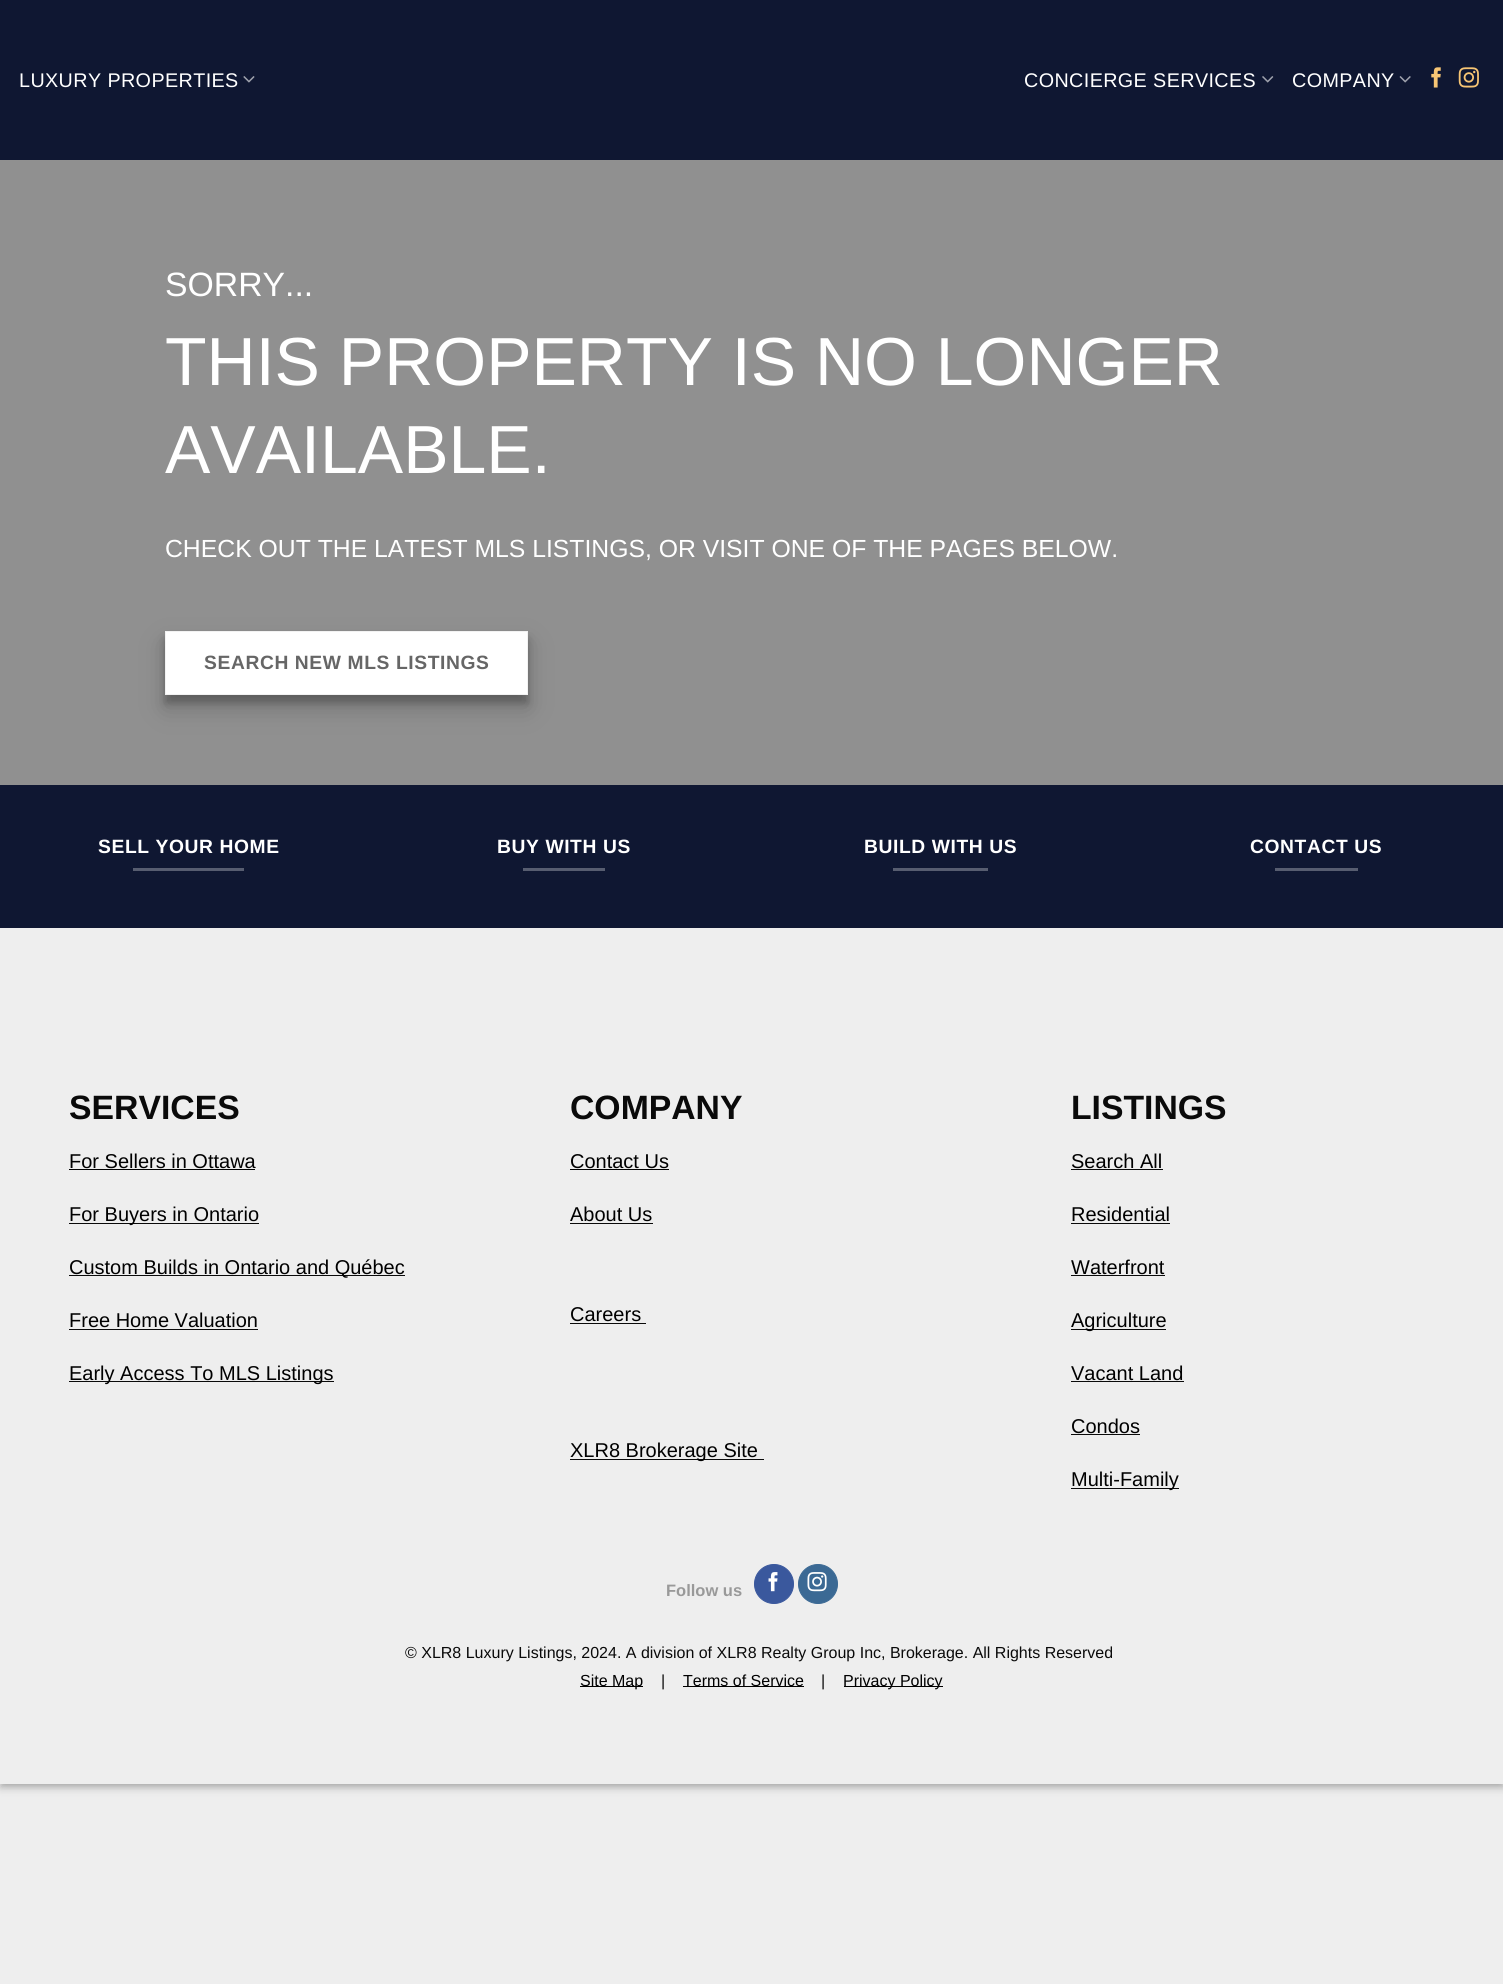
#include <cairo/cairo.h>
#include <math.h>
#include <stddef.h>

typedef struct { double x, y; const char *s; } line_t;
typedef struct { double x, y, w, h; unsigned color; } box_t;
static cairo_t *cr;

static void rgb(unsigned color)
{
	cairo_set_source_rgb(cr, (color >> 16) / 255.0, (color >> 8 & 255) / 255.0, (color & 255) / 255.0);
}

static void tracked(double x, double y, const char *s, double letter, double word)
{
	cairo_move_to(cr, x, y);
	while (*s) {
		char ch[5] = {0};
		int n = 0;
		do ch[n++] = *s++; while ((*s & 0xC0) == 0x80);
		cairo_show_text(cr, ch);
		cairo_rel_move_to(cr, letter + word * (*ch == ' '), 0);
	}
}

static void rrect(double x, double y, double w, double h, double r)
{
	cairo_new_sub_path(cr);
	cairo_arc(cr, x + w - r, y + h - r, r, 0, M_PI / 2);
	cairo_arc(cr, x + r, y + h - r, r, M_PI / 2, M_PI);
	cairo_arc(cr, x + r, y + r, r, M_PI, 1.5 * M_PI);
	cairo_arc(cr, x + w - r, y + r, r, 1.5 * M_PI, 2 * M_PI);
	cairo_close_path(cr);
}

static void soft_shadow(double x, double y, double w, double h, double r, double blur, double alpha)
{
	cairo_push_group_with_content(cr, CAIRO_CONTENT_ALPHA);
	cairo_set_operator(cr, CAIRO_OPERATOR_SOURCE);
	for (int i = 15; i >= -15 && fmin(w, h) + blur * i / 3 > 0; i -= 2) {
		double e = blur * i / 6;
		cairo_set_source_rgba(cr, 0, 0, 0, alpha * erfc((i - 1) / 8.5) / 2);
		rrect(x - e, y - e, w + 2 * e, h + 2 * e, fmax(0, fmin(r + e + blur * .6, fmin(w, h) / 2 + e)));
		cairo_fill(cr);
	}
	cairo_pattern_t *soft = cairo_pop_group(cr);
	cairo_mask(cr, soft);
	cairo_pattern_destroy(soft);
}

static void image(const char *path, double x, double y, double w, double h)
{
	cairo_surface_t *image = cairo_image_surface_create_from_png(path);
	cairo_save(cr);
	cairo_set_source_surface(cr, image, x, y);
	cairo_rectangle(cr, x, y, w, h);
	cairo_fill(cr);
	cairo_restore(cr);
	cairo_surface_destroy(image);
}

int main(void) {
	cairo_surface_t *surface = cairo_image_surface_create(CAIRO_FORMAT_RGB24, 1503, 1984);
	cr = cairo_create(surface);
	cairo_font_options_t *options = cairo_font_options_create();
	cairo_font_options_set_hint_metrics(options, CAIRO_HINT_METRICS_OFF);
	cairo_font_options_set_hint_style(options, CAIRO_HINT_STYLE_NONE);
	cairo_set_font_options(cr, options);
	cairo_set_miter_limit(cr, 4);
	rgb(0xeeeeee);
	cairo_paint(cr);
	rgb(0x000000);
	soft_shadow(0, 4, 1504, 1784, 0, 4, 0.23);
	soft_shadow(5, 9, 1494, 1774, 0, 4, 0.16);
	rgb(0x0f1732);
	cairo_rectangle(cr, 0, 0, 1503, 160);
	cairo_fill(cr);
	image("img/1.png", 243, 76, 12, 7);
	image("img/2.png", 1262, 76, 12, 7);
	image("img/3.png", 1399, 76, 12, 7);
	image("img/4.png", 1431, 67, 10, 21);
	image("img/5.png", 1458, 67, 21, 21);
	rgb(0x909090);
	cairo_rectangle(cr, 0, 160, 1503, 625);
	cairo_fill(cr);
	rgb(0x000000);
	soft_shadow(165, 639, 363, 64, 0, 4, 0.22);
	soft_shadow(165, 644, 363, 64, 0, 12.5, 0.19);
	rgb(0xffffff);
	cairo_rectangle(cr, 165.5, 631.5, 362, 63);
	cairo_fill_preserve(cr);
	rgb(0xf2f2f2);
	cairo_set_line_width(cr, 1);
	cairo_stroke(cr);
	{
		static const box_t items[] = {
			{0, 785, 1503, 143, 0x0f1732},
			{133, 868, 111, 3, 0x575d70},
			{523, 868, 82, 3, 0x575d70},
			{893, 868, 95, 3, 0x575d70},
			{1275, 868, 83, 3, 0x575d70},
			{0, 928, 1503, 856, 0xeeeeee},
			{69, 1169, 186, 1, 0x000000},
			{69, 1223, 190, 1, 0x0a0a0a},
			{69, 1275, 336, 1, 0x0a0a0a},
			{69, 1329, 189, 1, 0x0a0a0a},
			{69, 1381, 265, 1, 0x0a0a0a},
			{570, 1169, 99, 1, 0x000000},
			{570, 1223, 83, 1, 0x0a0a0a},
			{570, 1323, 76, 1, 0x0a0a0a},
			{570, 1459, 194, 1, 0x0a0a0a},
			{1071, 1169, 92, 1, 0x0a0a0a},
			{1071, 1223, 99, 1, 0x0a0a0a},
			{1071, 1275, 94, 1, 0x0a0a0a},
			{1071, 1329, 95, 1, 0x0a0a0a},
			{1071, 1381, 113, 1, 0x0a0a0a},
			{1071, 1434, 69, 1, 0x0a0a0a},
			{1071, 1488, 108, 1, 0x0a0a0a},
		};
		for (size_t i = 0; i < sizeof items / sizeof *items; i++) {
			rgb(items[i].color);
			cairo_rectangle(cr, items[i].x, items[i].y, items[i].w, items[i].h);
			cairo_fill(cr);
		}
	}
	rgb(0x3a589d);
	cairo_arc(cr, 774, 1584, 19.5, 0, 2 * M_PI);
	cairo_fill_preserve(cr);
	cairo_stroke(cr);
	image("img/6.png", 768, 1572, 10, 20);
	rgb(0x3b6994);
	cairo_arc(cr, 818, 1584, 19.5, 0, 2 * M_PI);
	cairo_fill_preserve(cr);
	cairo_stroke(cr);
	image("img/7.png", 807, 1572, 20, 20);
	{
		static const box_t items[] = {
			{580, 1686, 63, 1, 0x000000},
			{683, 1686, 121, 1, 0x000000},
			{844, 1686, 99, 1, 0x000000},
		};
		for (size_t i = 0; i < sizeof items / sizeof *items; i++) {
			rgb(items[i].color);
			cairo_rectangle(cr, items[i].x, items[i].y, items[i].w, items[i].h);
			cairo_fill(cr);
		}
	}
	cairo_select_font_face(cr, "Liberation Sans", CAIRO_FONT_SLANT_NORMAL, CAIRO_FONT_WEIGHT_NORMAL);
	cairo_set_font_size(cr, 19.75);
	rgb(0xffffff);
	{
		static const line_t items[] = {
			{19, 87, "LUXURY PROPERTIES"},
			{1024, 87, "CONCIERGE SERVICES"},
			{1292, 87, "COMPANY"},
		};
		for (size_t i = 0; i < sizeof items / sizeof *items; i++) {
			tracked(items[i].x, items[i].y, items[i].s, 0.4, 0);
		}
	}
	cairo_set_font_size(cr, 33.75);
	cairo_move_to(cr, 165, 296);
	cairo_show_text(cr, "SORRY...");
	cairo_set_font_size(cr, 68);
	cairo_move_to(cr, 165, 385);
	cairo_show_text(cr, "THIS PROPERTY IS NO LONGER");
	cairo_move_to(cr, 165, 473);
	cairo_show_text(cr, "AVAILABLE.");
	cairo_set_font_size(cr, 24.75);
	cairo_move_to(cr, 165, 557);
	cairo_show_text(cr, "CHECK OUT THE LATEST MLS LISTINGS, OR VISIT ONE OF THE PAGES BELOW.");
	cairo_select_font_face(cr, "Liberation Sans", CAIRO_FONT_SLANT_NORMAL, CAIRO_FONT_WEIGHT_BOLD);
	cairo_set_font_size(cr, 19.25);
	rgb(0x666666);
	tracked(204, 669, "SEARCH NEW MLS LISTINGS", 0.6, 0);
	rgb(0xffffff);
	{
		static const line_t items[] = {
			{98, 853, "SELL YOUR HOME"},
			{497, 853, "BUY WITH US"},
			{864, 853, "BUILD WITH US"},
			{1250, 853, "CONTACT US"},
		};
		for (size_t i = 0; i < sizeof items / sizeof *items; i++) {
			tracked(items[i].x, items[i].y, items[i].s, 0.6, 0);
		}
	}
	cairo_set_font_size(cr, 33.75);
	rgb(0x0a0a0a);
	cairo_move_to(cr, 69, 1119);
	cairo_show_text(cr, "SERVICES");
	cairo_select_font_face(cr, "Liberation Sans", CAIRO_FONT_SLANT_NORMAL, CAIRO_FONT_WEIGHT_NORMAL);
	cairo_set_font_size(cr, 20);
	rgb(0x000000);
	{
		static const line_t items[] = {
			{69, 1168, "For Sellers in Ottawa"},
			{69, 1221, "For Buyers in Ontario"},
			{69, 1274, "Custom Builds in Ontario and Québec"},
			{69, 1327, "Free Home Valuation"},
			{69, 1380, "Early Access To MLS Listings"},
		};
		for (size_t i = 0; i < sizeof items / sizeof *items; i++) {
			cairo_move_to(cr, items[i].x, items[i].y);
			cairo_show_text(cr, items[i].s);
		}
	}
	cairo_select_font_face(cr, "Liberation Sans", CAIRO_FONT_SLANT_NORMAL, CAIRO_FONT_WEIGHT_BOLD);
	cairo_set_font_size(cr, 33.75);
	rgb(0x0a0a0a);
	cairo_move_to(cr, 570, 1119);
	cairo_show_text(cr, "COMPANY");
	cairo_select_font_face(cr, "Liberation Sans", CAIRO_FONT_SLANT_NORMAL, CAIRO_FONT_WEIGHT_NORMAL);
	cairo_set_font_size(cr, 20);
	rgb(0x000000);
	{
		static const line_t items[] = {
			{570, 1168, "Contact Us"},
			{570, 1221, "About Us"},
			{570, 1321, "Careers"},
			{570, 1457, "XLR8 Brokerage Site"},
		};
		for (size_t i = 0; i < sizeof items / sizeof *items; i++) {
			cairo_move_to(cr, items[i].x, items[i].y);
			cairo_show_text(cr, items[i].s);
		}
	}
	cairo_select_font_face(cr, "Liberation Sans", CAIRO_FONT_SLANT_NORMAL, CAIRO_FONT_WEIGHT_BOLD);
	cairo_set_font_size(cr, 33.75);
	rgb(0x0a0a0a);
	cairo_move_to(cr, 1071, 1119);
	cairo_show_text(cr, "LISTINGS");
	cairo_select_font_face(cr, "Liberation Sans", CAIRO_FONT_SLANT_NORMAL, CAIRO_FONT_WEIGHT_NORMAL);
	cairo_set_font_size(cr, 20);
	rgb(0x000000);
	{
		static const line_t items[] = {
			{1071, 1168, "Search All"},
			{1071, 1221, "Residential"},
			{1071, 1274, "Waterfront"},
			{1071, 1327, "Agriculture"},
			{1071, 1380, "Vacant Land"},
			{1071, 1433, "Condos"},
			{1071, 1486, "Multi-Family"},
		};
		for (size_t i = 0; i < sizeof items / sizeof *items; i++) {
			cairo_move_to(cr, items[i].x, items[i].y);
			cairo_show_text(cr, items[i].s);
		}
	}
	cairo_select_font_face(cr, "Liberation Sans", CAIRO_FONT_SLANT_NORMAL, CAIRO_FONT_WEIGHT_BOLD);
	cairo_set_font_size(cr, 16.5);
	rgb(0x999999);
	cairo_move_to(cr, 666, 1596);
	cairo_show_text(cr, "Follow us");
	cairo_select_font_face(cr, "Liberation Sans", CAIRO_FONT_SLANT_NORMAL, CAIRO_FONT_WEIGHT_NORMAL);
	cairo_set_font_size(cr, 16);
	rgb(0x0a0a0a);
	cairo_move_to(cr, 405, 1658);
	cairo_show_text(cr, "© XLR8 Luxury Listings, 2024. A division of XLR8 Realty Group Inc, Brokerage. All Rights Reserved");
	rgb(0x000000);
	cairo_move_to(cr, 580, 1686);
	cairo_show_text(cr, "Site Map");
	rgb(0x0a0a0a);
	cairo_move_to(cr, 661, 1686);
	cairo_show_text(cr, "|");
	rgb(0x000000);
	cairo_move_to(cr, 683, 1686);
	cairo_show_text(cr, "Terms of Service");
	rgb(0x0a0a0a);
	cairo_move_to(cr, 821, 1686);
	cairo_show_text(cr, "|");
	rgb(0x000000);
	cairo_move_to(cr, 843, 1686);
	cairo_show_text(cr, "Privacy Policy");
	cairo_surface_write_to_png(surface, "page.png");
	cairo_font_options_destroy(options);
	cairo_destroy(cr);
	cairo_surface_destroy(surface);
	return 0;
}
